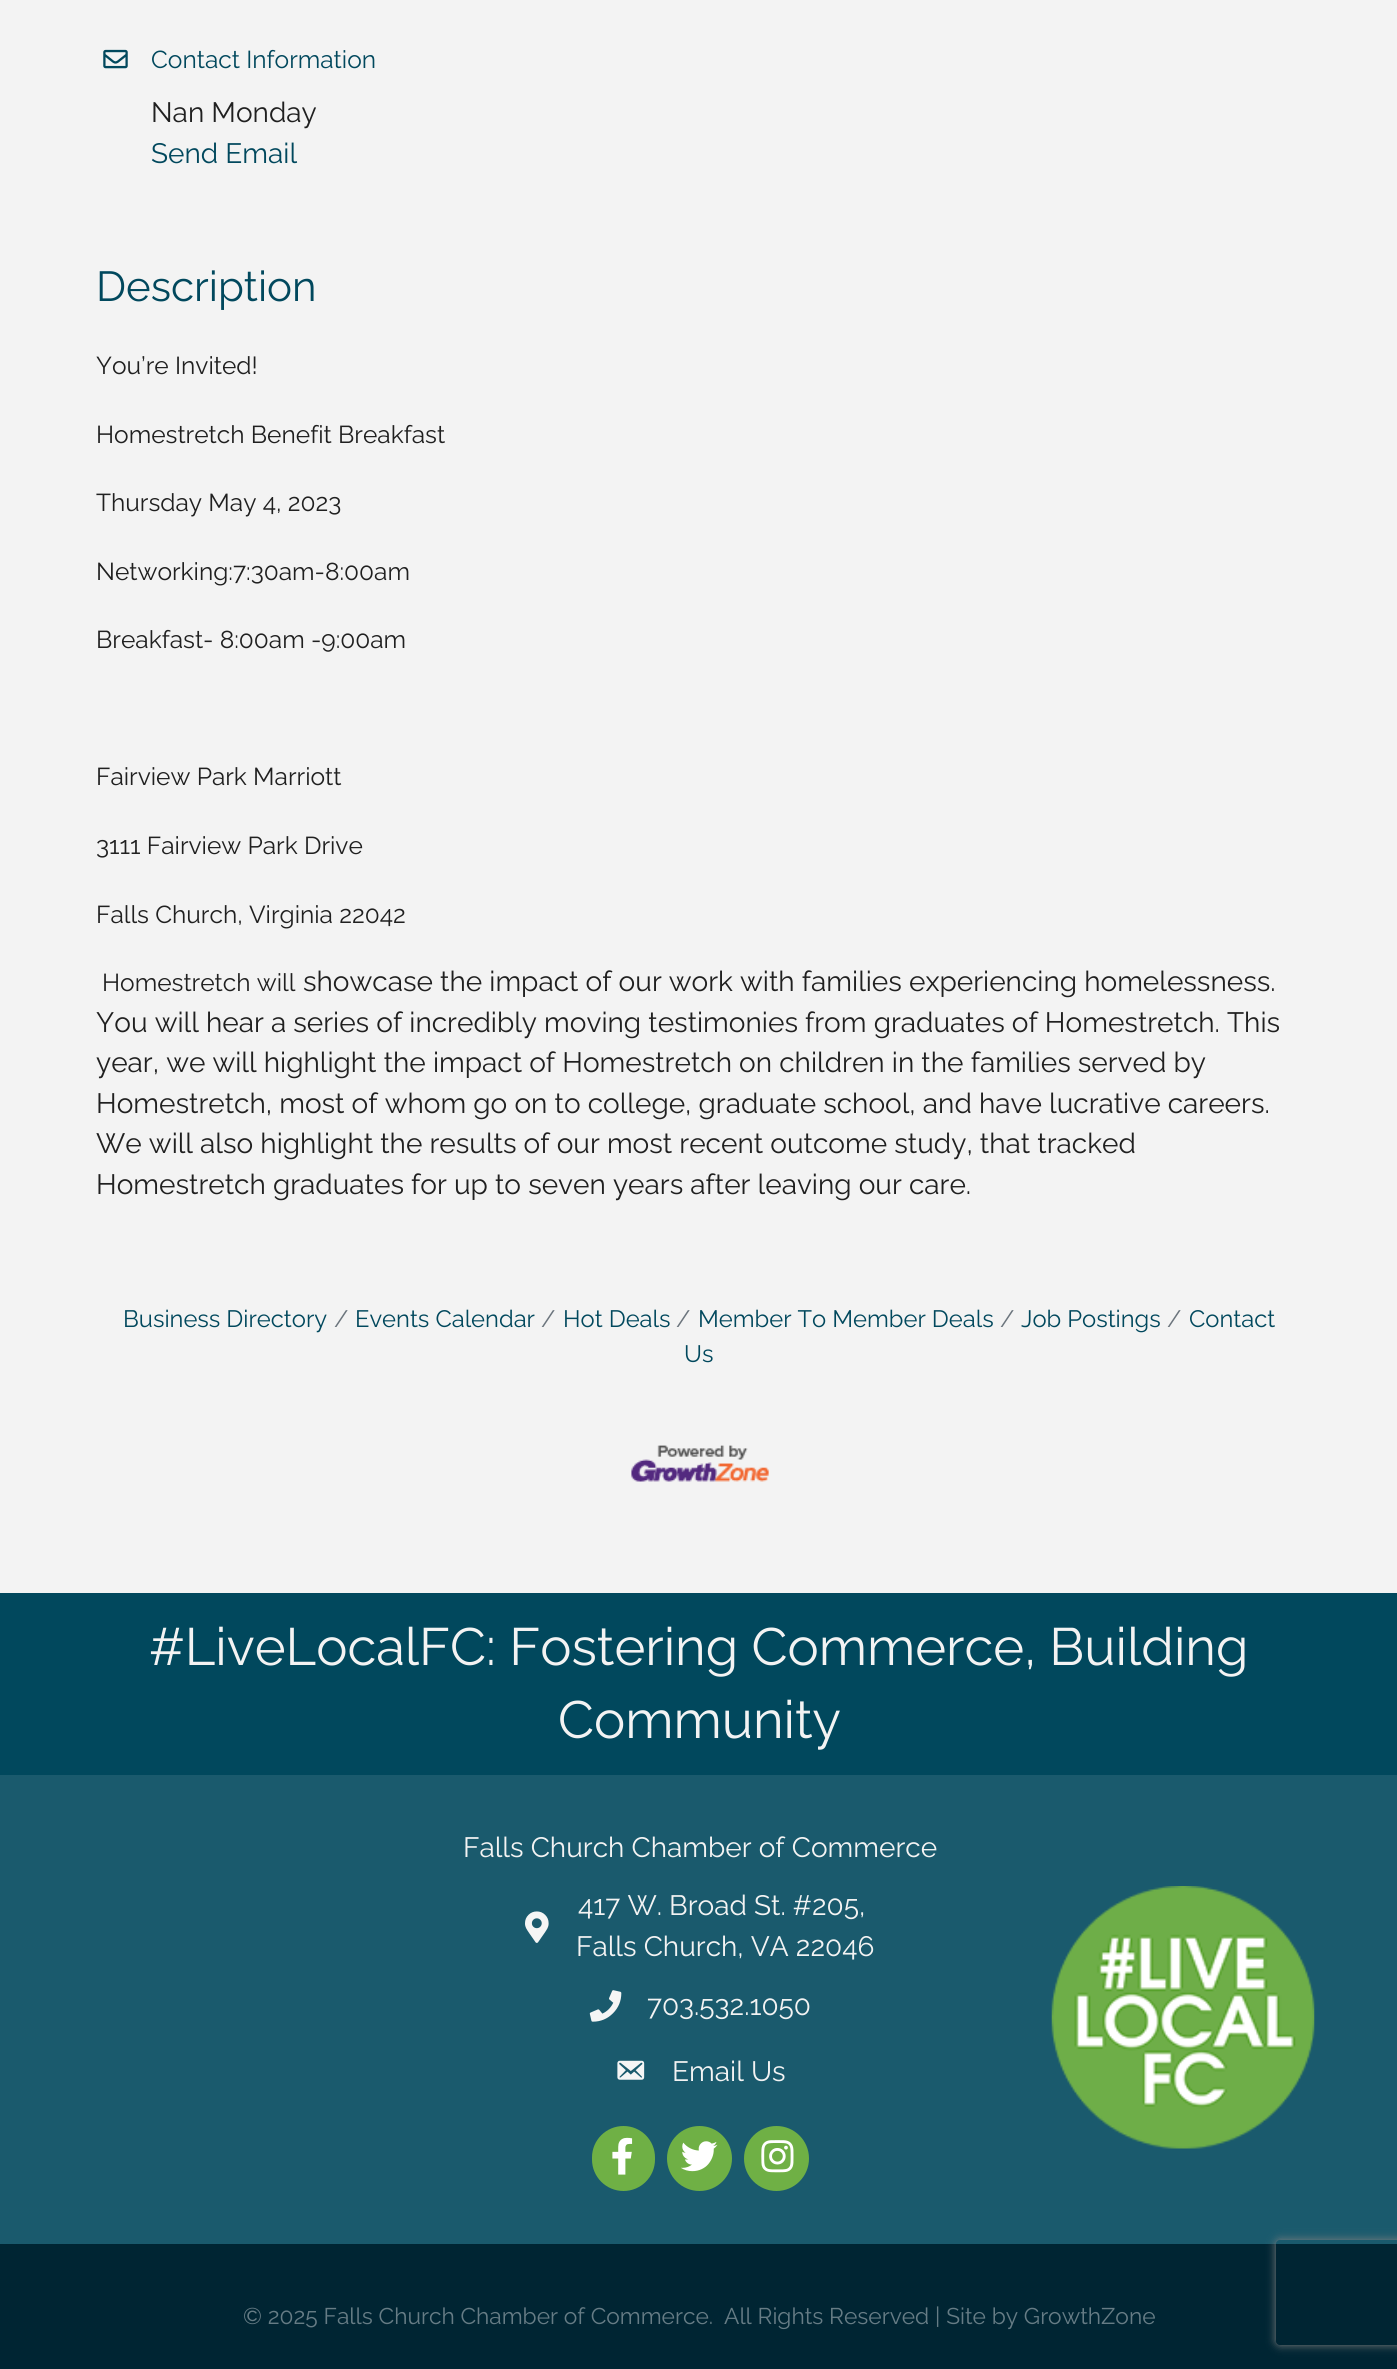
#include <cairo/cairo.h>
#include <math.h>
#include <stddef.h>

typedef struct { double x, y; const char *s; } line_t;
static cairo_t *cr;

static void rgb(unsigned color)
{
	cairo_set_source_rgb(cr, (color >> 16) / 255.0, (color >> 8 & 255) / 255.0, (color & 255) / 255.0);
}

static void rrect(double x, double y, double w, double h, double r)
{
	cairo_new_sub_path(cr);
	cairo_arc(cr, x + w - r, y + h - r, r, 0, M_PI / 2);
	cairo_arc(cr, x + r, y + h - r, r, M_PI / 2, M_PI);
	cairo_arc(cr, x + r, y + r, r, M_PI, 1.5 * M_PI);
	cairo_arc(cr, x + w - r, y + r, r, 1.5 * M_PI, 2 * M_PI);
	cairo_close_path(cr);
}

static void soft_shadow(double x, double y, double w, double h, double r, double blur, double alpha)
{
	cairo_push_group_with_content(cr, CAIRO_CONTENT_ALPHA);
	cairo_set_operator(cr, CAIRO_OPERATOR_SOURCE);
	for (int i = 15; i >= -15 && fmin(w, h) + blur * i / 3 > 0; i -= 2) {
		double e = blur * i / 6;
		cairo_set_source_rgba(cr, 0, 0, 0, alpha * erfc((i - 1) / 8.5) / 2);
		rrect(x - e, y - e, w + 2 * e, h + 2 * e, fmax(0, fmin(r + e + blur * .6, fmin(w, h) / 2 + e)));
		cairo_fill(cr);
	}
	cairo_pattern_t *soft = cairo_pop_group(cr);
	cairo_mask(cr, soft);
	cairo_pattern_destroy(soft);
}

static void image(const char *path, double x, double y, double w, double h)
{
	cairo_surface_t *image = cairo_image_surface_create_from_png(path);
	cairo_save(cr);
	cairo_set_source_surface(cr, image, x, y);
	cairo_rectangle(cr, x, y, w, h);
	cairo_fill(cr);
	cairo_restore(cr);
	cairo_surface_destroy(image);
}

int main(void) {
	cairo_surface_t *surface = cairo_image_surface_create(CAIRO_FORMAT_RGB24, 1397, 2369);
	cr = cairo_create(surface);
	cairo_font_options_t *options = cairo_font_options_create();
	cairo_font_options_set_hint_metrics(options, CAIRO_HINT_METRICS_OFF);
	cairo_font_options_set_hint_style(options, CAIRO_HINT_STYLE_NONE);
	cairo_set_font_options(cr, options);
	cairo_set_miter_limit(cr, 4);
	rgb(0xf3f3f3);
	cairo_paint(cr);
	image("img/1.png", 103, 49, 25, 20);
	image("img/2.png", 631, 1445, 138, 37);
	rgb(0x01485d);
	cairo_rectangle(cr, 0, 1593, 1397, 182);
	cairo_fill(cr);
	rgb(0x1a5a6d);
	cairo_rectangle(cr, 0, 1775, 1397, 469);
	cairo_fill(cr);
	image("img/3.png", 525, 1911, 24, 32);
	image("img/4.png", 589, 1990, 33, 32);
	image("img/5.png", 617, 2060, 28, 20);
	rgb(0x6fb045);
	rrect(592, 2126, 63, 65, 31.5);
	cairo_fill(cr);
	image("img/6.png", 612, 2137, 21, 38);
	cairo_arc(cr, 699.5, 2158.5, 32.5, 0, 2 * M_PI);
	cairo_fill(cr);
	image("img/7.png", 681, 2141, 37, 31);
	cairo_arc(cr, 776.5, 2158.5, 32.5, 0, 2 * M_PI);
	cairo_fill(cr);
	image("img/8.png", 761, 2140, 33, 33);
	image("img/9.png", 1051, 1886, 264, 263);
	rgb(0x002533);
	cairo_rectangle(cr, 0, 2244, 1397, 125);
	cairo_fill(cr);
	cairo_save(cr);
	cairo_set_fill_rule(cr, CAIRO_FILL_RULE_EVEN_ODD);
	cairo_new_path(cr);
	cairo_move_to(cr, 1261, 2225);
	cairo_line_to(cr, 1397, 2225);
	cairo_line_to(cr, 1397, 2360);
	cairo_line_to(cr, 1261, 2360);
	cairo_close_path(cr);
	cairo_move_to(cr, 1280, 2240);
	cairo_line_to(cr, 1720, 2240);
	cairo_curve_to(cr, 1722, 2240, 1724, 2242, 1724, 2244);
	cairo_line_to(cr, 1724, 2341);
	cairo_curve_to(cr, 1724, 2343, 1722, 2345, 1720, 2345);
	cairo_line_to(cr, 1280, 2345);
	cairo_curve_to(cr, 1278, 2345, 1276, 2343, 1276, 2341);
	cairo_line_to(cr, 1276, 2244);
	cairo_curve_to(cr, 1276, 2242, 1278, 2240, 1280, 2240);
	cairo_close_path(cr);
	cairo_clip(cr);
	rgb(0x808080);
	soft_shadow(1276, 2240, 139, 105, 4, 4.5, 1);
	cairo_restore(cr);
	cairo_select_font_face(cr, "Raleway", CAIRO_FONT_SLANT_NORMAL, CAIRO_FONT_WEIGHT_NORMAL);
	cairo_set_font_size(cr, 24.5);
	rgb(0x01485d);
	cairo_move_to(cr, 151, 68);
	cairo_show_text(cr, "Contact Information");
	cairo_set_font_size(cr, 28);
	rgb(0x202020);
	cairo_move_to(cr, 151, 122);
	cairo_show_text(cr, "Nan Monday");
	rgb(0x01485d);
	cairo_move_to(cr, 151, 163);
	cairo_show_text(cr, "Send Email");
	cairo_set_font_size(cr, 42);
	cairo_move_to(cr, 96, 301);
	cairo_show_text(cr, "Description");
	cairo_set_font_size(cr, 24.5);
	rgb(0x202020);
	{
		static const line_t items[] = {
			{96, 374, "You’re Invited!"},
			{96, 443, "Homestretch Benefit Breakfast"},
			{96, 511, "Thursday May 4, 2023"},
			{96, 580, "Networking:7:30am-8:00am"},
			{96, 648, "Breakfast- 8:00am -9:00am"},
			{96, 785, "Fairview Park Marriott"},
			{96, 854, "3111 Fairview Park Drive"},
			{96, 923, "Falls Church, Virginia 22042"},
			{102, 991, "Homestretch will"},
		};
		for (size_t i = 0; i < sizeof items / sizeof *items; i++) {
			cairo_move_to(cr, items[i].x, items[i].y);
			cairo_show_text(cr, items[i].s);
		}
	}
	cairo_set_font_size(cr, 28);
	{
		static const line_t items[] = {
			{303, 991, "showcase the impact of our work with families experiencing homelessness."},
			{96, 1032, "You will hear a series of incredibly moving testimonies from graduates of Homestretch. This"},
			{96, 1072, "year, we will highlight the impact of Homestretch on children in the families served by"},
			{96, 1113, "Homestretch, most of whom go on to college, graduate school, and have lucrative careers."},
			{96, 1153, "We will also highlight the results of our most recent outcome study, that tracked"},
			{96, 1194, "Homestretch graduates for up to seven years after leaving our care."},
		};
		for (size_t i = 0; i < sizeof items / sizeof *items; i++) {
			cairo_move_to(cr, items[i].x, items[i].y);
			cairo_show_text(cr, items[i].s);
		}
	}
	cairo_set_font_size(cr, 23.75);
	rgb(0x01485d);
	cairo_move_to(cr, 123, 1327);
	cairo_show_text(cr, "Business Directory");
	rgb(0x6c757d);
	cairo_move_to(cr, 334, 1327);
	cairo_show_text(cr, "/");
	rgb(0x01485d);
	cairo_move_to(cr, 355, 1327);
	cairo_show_text(cr, "Events Calendar");
	rgb(0x6c757d);
	cairo_move_to(cr, 541, 1327);
	cairo_show_text(cr, "/");
	rgb(0x01485d);
	cairo_move_to(cr, 563, 1327);
	cairo_show_text(cr, "Hot Deals");
	rgb(0x6c757d);
	cairo_move_to(cr, 676, 1327);
	cairo_show_text(cr, "/");
	rgb(0x01485d);
	cairo_move_to(cr, 698, 1327);
	cairo_show_text(cr, "Member To Member Deals");
	rgb(0x6c757d);
	cairo_move_to(cr, 1000, 1327);
	cairo_show_text(cr, "/");
	rgb(0x01485d);
	cairo_move_to(cr, 1021, 1327);
	cairo_show_text(cr, "Job Postings");
	rgb(0x6c757d);
	cairo_move_to(cr, 1167, 1327);
	cairo_show_text(cr, "/");
	rgb(0x01485d);
	cairo_move_to(cr, 1189, 1327);
	cairo_show_text(cr, "Contact");
	cairo_move_to(cr, 684, 1362);
	cairo_show_text(cr, "Us");
	cairo_set_font_size(cr, 52.5);
	rgb(0xf3f3f3);
	cairo_move_to(cr, 149, 1665);
	cairo_show_text(cr, "#LiveLocalFC: Fostering Commerce, Building");
	cairo_move_to(cr, 558, 1738);
	cairo_show_text(cr, "Community");
	cairo_set_font_size(cr, 28);
	{
		static const line_t items[] = {
			{463, 1857, "Falls Church Chamber of Commerce"},
			{578, 1915, "417 W. Broad St. #205,"},
			{576, 1956, "Falls Church, VA 22046"},
			{647, 2015, "703.532.1050"},
			{672, 2081, "Email Us"},
		};
		for (size_t i = 0; i < sizeof items / sizeof *items; i++) {
			cairo_move_to(cr, items[i].x, items[i].y);
			cairo_show_text(cr, items[i].s);
		}
	}
	cairo_set_font_size(cr, 22.75);
	rgb(0x667c85);
	cairo_move_to(cr, 243, 2324);
	cairo_show_text(cr, "© 2025 Falls Church Chamber of Commerce.");
	cairo_move_to(cr, 724, 2324);
	cairo_show_text(cr, "All Rights Reserved | Site by GrowthZone");
	cairo_surface_write_to_png(surface, "page.png");
	cairo_font_options_destroy(options);
	cairo_destroy(cr);
	cairo_surface_destroy(surface);
	return 0;
}
